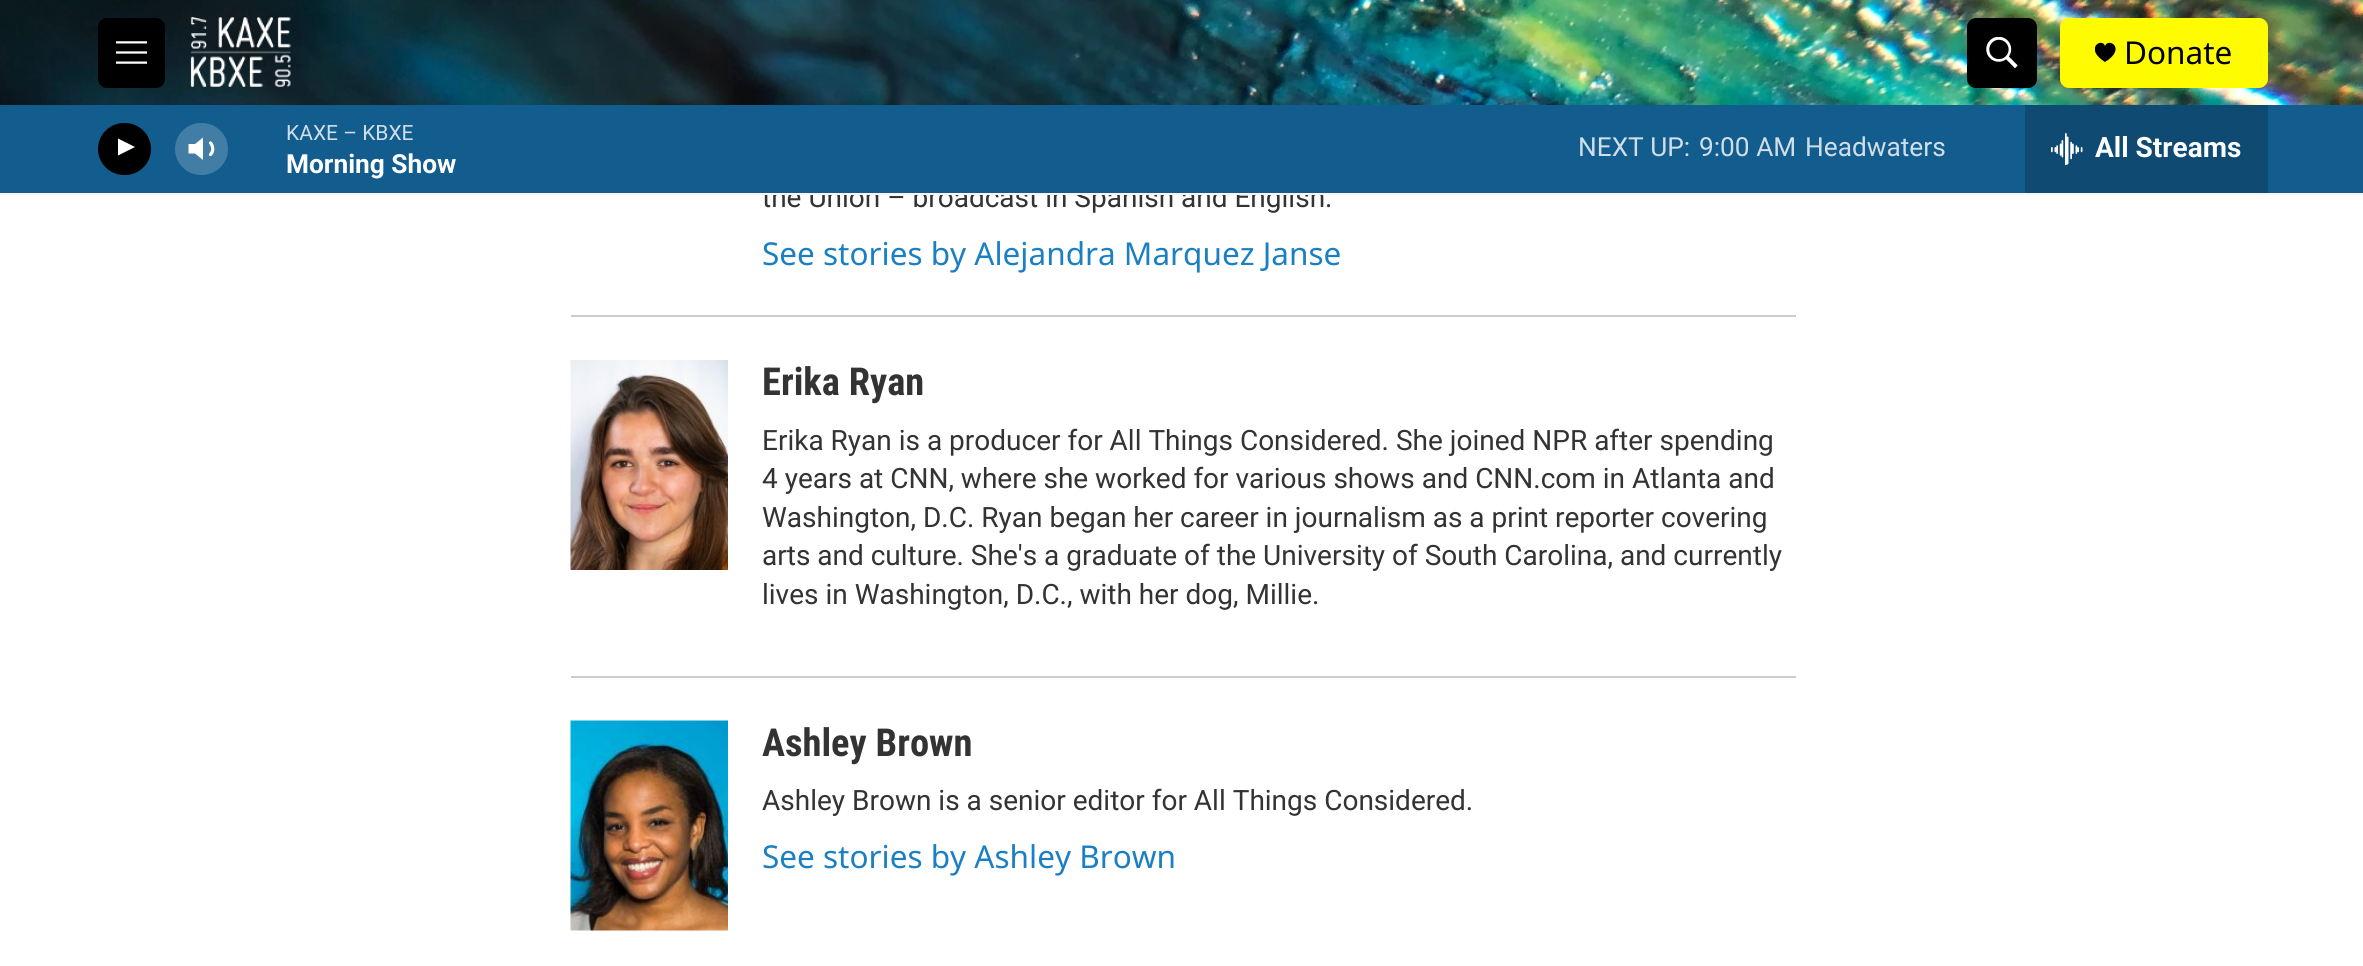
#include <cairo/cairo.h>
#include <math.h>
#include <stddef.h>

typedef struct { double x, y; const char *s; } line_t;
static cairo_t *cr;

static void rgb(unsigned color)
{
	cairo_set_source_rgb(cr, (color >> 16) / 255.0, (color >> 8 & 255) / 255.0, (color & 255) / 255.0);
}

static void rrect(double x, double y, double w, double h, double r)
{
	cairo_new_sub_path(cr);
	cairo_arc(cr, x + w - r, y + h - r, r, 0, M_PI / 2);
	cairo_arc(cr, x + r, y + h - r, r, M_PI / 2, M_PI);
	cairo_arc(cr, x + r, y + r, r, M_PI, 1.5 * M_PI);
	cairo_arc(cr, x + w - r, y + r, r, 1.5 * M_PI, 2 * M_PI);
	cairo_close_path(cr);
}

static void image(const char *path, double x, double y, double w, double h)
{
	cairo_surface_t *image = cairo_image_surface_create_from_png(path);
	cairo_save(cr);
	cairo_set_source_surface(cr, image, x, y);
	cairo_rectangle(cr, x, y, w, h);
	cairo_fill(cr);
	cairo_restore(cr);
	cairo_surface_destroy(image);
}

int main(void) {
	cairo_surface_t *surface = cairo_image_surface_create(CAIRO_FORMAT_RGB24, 2363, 966);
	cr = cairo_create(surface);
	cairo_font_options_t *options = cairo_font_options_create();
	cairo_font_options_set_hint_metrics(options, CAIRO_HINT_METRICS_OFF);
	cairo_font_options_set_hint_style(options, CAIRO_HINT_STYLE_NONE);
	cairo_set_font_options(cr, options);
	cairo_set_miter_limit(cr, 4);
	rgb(0xffffff);
	cairo_paint(cr);
	image("img/1.png", 0, 0, 2363, 105);
	rgb(0x000000);
	rrect(98, 18, 67, 70, 9);
	cairo_fill(cr);
	image("img/2.png", 116, 41, 31, 23);
	image("img/3.png", 190, 17, 101, 70);
	rrect(1967, 18, 70, 70, 9);
	cairo_fill(cr);
	image("img/4.png", 1986, 37, 32, 31);
	rgb(0xfffb00);
	rrect(2060, 18, 208, 70, 9);
	cairo_fill(cr);
	cairo_save(cr);
	cairo_rectangle(cr, 2095, 42, 21, 21);
	cairo_clip(cr);
	rgb(0x000000);
	cairo_new_path(cr);
	cairo_move_to(cr, 2105, 46);
	cairo_curve_to(cr, 2102, 37, 2083.5, 48.5, 2105, 62);
	cairo_curve_to(cr, 2127, 48.5, 2108.5, 37, 2105, 46);
	cairo_close_path(cr);
	cairo_fill(cr);
	cairo_restore(cr);
	rgb(0xcccccc);
	cairo_rectangle(cr, 571, 315, 1225, 2);
	cairo_fill(cr);
	cairo_rectangle(cr, 571, 676, 1225, 2);
	cairo_fill(cr);
	image("img/6.png", 570, 360, 158, 210);
	image("img/7.png", 570, 720, 158, 211);
	cairo_select_font_face(cr, "Noto Sans", CAIRO_FONT_SLANT_NORMAL, CAIRO_FONT_WEIGHT_NORMAL);
	cairo_set_font_size(cr, 31.5);
	rgb(0x000000);
	cairo_move_to(cr, 2124, 64);
	cairo_show_text(cr, "Donate");
	cairo_select_font_face(cr, "Roboto", CAIRO_FONT_SLANT_NORMAL, CAIRO_FONT_WEIGHT_NORMAL);
	cairo_set_font_size(cr, 28);
	rgb(0x333333);
	cairo_move_to(cr, 762, 207);
	cairo_show_text(cr, "the Union – broadcast in Spanish and English.");
	rgb(0x125c8e);
	cairo_rectangle(cr, 0, 105, 2363, 88);
	cairo_fill(cr);
	cairo_set_font_size(cr, 26.25);
	rgb(0xd0dee8);
	{
		static const line_t items[] = {
			{1805, 156, "Headwaters"},
			{1699, 156, "9:00 AM"},
			{1578, 156, "NEXT UP:"},
		};
		for (size_t i = 0; i < sizeof items / sizeof *items; i++) {
			cairo_move_to(cr, items[i].x, items[i].y);
			cairo_show_text(cr, items[i].s);
		}
	}
	cairo_set_font_size(cr, 21);
	cairo_move_to(cr, 286, 140);
	cairo_show_text(cr, "KAXE – KBXE");
	cairo_new_path(cr);
	cairo_move_to(cr, 210.5, 143);
	cairo_curve_to(cr, 213.5, 146.5, 213.5, 151.5, 210.5, 154.5);
	rgb(0xffffff);
	cairo_set_line_width(cr, 3.2);
	cairo_set_line_cap(cr, CAIRO_LINE_CAP_ROUND);
	cairo_set_line_join(cr, CAIRO_LINE_JOIN_ROUND);
	cairo_stroke(cr);
	cairo_new_path(cr);
	cairo_move_to(cr, 203, 137.5);
	cairo_line_to(cr, 195, 144);
	cairo_line_to(cr, 188.5, 144);
	cairo_line_to(cr, 188.5, 153.5);
	cairo_line_to(cr, 195, 153.5);
	cairo_line_to(cr, 203, 160);
	cairo_close_path(cr);
	cairo_fill(cr);
	cairo_set_source_rgba(cr, 1, 1, 1, 0.2);
	rrect(175, 123, 53, 52, 26);
	cairo_fill(cr);
	rgb(0x000000);
	rrect(98, 123, 53, 52, 26);
	cairo_fill(cr);
	rgb(0xffffff);
	cairo_new_path(cr);
	cairo_move_to(cr, 118, 138.5);
	cairo_line_to(cr, 135, 147);
	cairo_line_to(cr, 118, 155.5);
	cairo_close_path(cr);
	cairo_fill(cr);
	rgb(0x0e4a72);
	cairo_rectangle(cr, 2025, 105, 243, 88);
	cairo_fill(cr);
	image("img/5.png", 2051, 133, 32, 32);
	cairo_select_font_face(cr, "Roboto", CAIRO_FONT_SLANT_NORMAL, CAIRO_FONT_WEIGHT_BOLD);
	cairo_set_font_size(cr, 26.25);
	rgb(0xffffff);
	cairo_move_to(cr, 286, 173);
	cairo_show_text(cr, "Morning Show");
	cairo_set_font_size(cr, 28);
	cairo_move_to(cr, 2095, 157);
	cairo_show_text(cr, "All Streams");
	rgb(0xf5f5f5);
	cairo_rectangle(cr, 0, 193, 2363, 2);
	cairo_fill(cr);
	cairo_select_font_face(cr, "Noto Sans", CAIRO_FONT_SLANT_NORMAL, CAIRO_FONT_WEIGHT_NORMAL);
	cairo_set_font_size(cr, 31.5);
	rgb(0x1a7fc3);
	cairo_move_to(cr, 762, 265);
	cairo_show_text(cr, "See stories by Alejandra Marquez Janse");
	cairo_select_font_face(cr, "Roboto Condensed", CAIRO_FONT_SLANT_NORMAL, CAIRO_FONT_WEIGHT_BOLD);
	cairo_set_font_size(cr, 38.5);
	rgb(0x333333);
	cairo_move_to(cr, 762, 395);
	cairo_show_text(cr, "Erika Ryan");
	cairo_select_font_face(cr, "Roboto", CAIRO_FONT_SLANT_NORMAL, CAIRO_FONT_WEIGHT_NORMAL);
	cairo_set_font_size(cr, 28);
	{
		static const line_t items[] = {
			{762, 450, "Erika Ryan is a producer for All Things Considered. She joined NPR after spending"},
			{762, 488, "4 years at CNN, where she worked for various shows and CNN.com in Atlanta and"},
			{762, 527, "Washington, D.C. Ryan began her career in journalism as a print reporter covering"},
			{762, 565, "arts and culture. She's a graduate of the University of South Carolina, and currently"},
			{762, 604, "lives in Washington, D.C., with her dog, Millie."},
		};
		for (size_t i = 0; i < sizeof items / sizeof *items; i++) {
			cairo_move_to(cr, items[i].x, items[i].y);
			cairo_show_text(cr, items[i].s);
		}
	}
	cairo_select_font_face(cr, "Roboto Condensed", CAIRO_FONT_SLANT_NORMAL, CAIRO_FONT_WEIGHT_BOLD);
	cairo_set_font_size(cr, 38.5);
	cairo_move_to(cr, 762, 756);
	cairo_show_text(cr, "Ashley Brown");
	cairo_select_font_face(cr, "Roboto", CAIRO_FONT_SLANT_NORMAL, CAIRO_FONT_WEIGHT_NORMAL);
	cairo_set_font_size(cr, 28);
	cairo_move_to(cr, 762, 810);
	cairo_show_text(cr, "Ashley Brown is a senior editor for All Things Considered.");
	cairo_select_font_face(cr, "Noto Sans", CAIRO_FONT_SLANT_NORMAL, CAIRO_FONT_WEIGHT_NORMAL);
	cairo_set_font_size(cr, 31.5);
	rgb(0x1a7fc3);
	cairo_move_to(cr, 762, 868);
	cairo_show_text(cr, "See stories by Ashley Brown");
	cairo_surface_write_to_png(surface, "page.png");
	cairo_font_options_destroy(options);
	cairo_destroy(cr);
	cairo_surface_destroy(surface);
	return 0;
}
